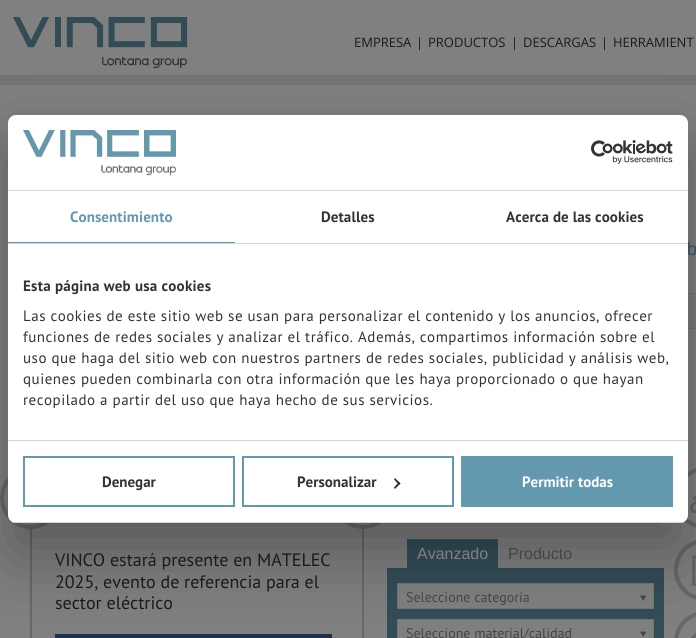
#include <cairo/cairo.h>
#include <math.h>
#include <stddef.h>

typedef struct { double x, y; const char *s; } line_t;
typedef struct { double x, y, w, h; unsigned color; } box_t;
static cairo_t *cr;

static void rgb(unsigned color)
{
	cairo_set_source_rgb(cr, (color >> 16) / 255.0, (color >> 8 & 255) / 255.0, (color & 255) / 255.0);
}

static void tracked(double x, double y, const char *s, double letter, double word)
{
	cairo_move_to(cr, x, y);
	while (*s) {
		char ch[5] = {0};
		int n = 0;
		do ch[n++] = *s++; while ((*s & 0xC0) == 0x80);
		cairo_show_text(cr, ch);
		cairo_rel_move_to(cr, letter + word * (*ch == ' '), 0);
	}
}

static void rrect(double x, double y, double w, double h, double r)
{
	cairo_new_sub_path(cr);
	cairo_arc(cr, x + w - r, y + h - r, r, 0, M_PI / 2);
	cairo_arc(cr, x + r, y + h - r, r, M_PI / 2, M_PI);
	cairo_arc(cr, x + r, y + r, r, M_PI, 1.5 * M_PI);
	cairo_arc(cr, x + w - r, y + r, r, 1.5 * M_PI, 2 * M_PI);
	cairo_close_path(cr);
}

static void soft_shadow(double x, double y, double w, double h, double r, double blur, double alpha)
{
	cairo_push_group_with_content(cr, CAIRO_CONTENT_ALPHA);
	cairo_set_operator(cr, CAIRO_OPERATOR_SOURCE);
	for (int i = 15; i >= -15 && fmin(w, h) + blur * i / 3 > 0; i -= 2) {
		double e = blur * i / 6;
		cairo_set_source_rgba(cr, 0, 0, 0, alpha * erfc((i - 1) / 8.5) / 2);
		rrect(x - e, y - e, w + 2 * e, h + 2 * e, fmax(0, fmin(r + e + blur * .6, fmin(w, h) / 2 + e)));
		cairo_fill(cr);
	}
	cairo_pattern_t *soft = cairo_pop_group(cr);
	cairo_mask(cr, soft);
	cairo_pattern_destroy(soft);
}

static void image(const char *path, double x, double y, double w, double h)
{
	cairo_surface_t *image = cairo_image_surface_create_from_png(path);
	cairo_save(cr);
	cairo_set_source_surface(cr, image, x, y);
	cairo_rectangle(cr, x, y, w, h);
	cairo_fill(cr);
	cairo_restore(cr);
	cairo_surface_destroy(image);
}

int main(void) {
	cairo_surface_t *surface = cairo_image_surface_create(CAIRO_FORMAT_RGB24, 696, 638);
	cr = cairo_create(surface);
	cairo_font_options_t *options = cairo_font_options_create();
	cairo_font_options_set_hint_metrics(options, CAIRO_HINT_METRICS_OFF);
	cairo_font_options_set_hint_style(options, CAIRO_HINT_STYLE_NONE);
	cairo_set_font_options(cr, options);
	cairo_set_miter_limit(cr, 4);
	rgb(0x808080);
	cairo_paint(cr);
	image("img/1.png", 13, 17, 175, 51);
	rgb(0x727372);
	cairo_rectangle(cr, 0, 75, 696, 10);
	cairo_fill(cr);
	rgb(0x7b7c7b);
	cairo_rectangle(cr, 688, 294, 8, 34);
	cairo_fill(cr);
	cairo_rectangle(cr, 520.5, 293.5, 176, 35);
	rgb(0x727372);
	cairo_set_line_width(cr, 1);
	cairo_stroke(cr);
	image("img/2.png", 0, 467, 62, 62);
	rgb(0x676767);
	cairo_rectangle(cr, 30, 529, 2, 109);
	cairo_fill(cr);
	rgb(0x1d2f4d);
	cairo_rectangle(cr, 55, 634, 277, 4);
	cairo_fill(cr);
	image("img/3.png", 332, 523, 62, 6);
	{
		static const box_t items[] = {
			{362, 529, 2, 109, 0x676767},
			{407, 539, 91, 29, 0x324d58},
			{387, 568, 277, 70, 0x324d58},
		};
		for (size_t i = 0; i < sizeof items / sizeof *items; i++) {
			rgb(items[i].color);
			cairo_rectangle(cr, items[i].x, items[i].y, items[i].w, items[i].h);
			cairo_fill(cr);
		}
	}
	rgb(0x808080);
	cairo_rectangle(cr, 397.5, 583.5, 256, 25);
	cairo_fill_preserve(cr);
	rgb(0x727372);
	cairo_stroke(cr);
	image("img/4.png", 640, 595, 7, 6);
	rgb(0x808080);
	cairo_rectangle(cr, 397.5, 619.5, 256, 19);
	cairo_fill_preserve(cr);
	rgb(0x727372);
	cairo_stroke(cr);
	image("img/4.png", 640, 631, 7, 6);
	image("img/5.png", 674, 468, 22, 60);
	image("img/6.png", 674, 540, 22, 60);
	image("img/7.png", 674, 612, 22, 26);
	rgb(0x000000);
	soft_shadow(8, 147, 680, 408, 8, 34, 0.3);
	rgb(0xffffff);
	rrect(8, 115, 680, 408, 8);
	cairo_fill(cr);
	rgb(0xd6d6d6);
	cairo_rectangle(cr, 8, 190, 680, 1);
	cairo_fill(cr);
	image("img/8.png", 23, 130, 153, 46);
	image("img/9.png", 591, 140, 82, 24);
	{
		static const box_t items[] = {
			{8, 243, 680, 1, 0xd6d6d6},
			{8, 242, 227, 1, 0x6399af},
			{8, 440, 680, 1, 0xd6d6d6},
		};
		for (size_t i = 0; i < sizeof items / sizeof *items; i++) {
			rgb(items[i].color);
			cairo_rectangle(cr, items[i].x, items[i].y, items[i].w, items[i].h);
			cairo_fill(cr);
		}
	}
	cairo_save(cr);
	rrect(8, 115, 680, 408, 8);
	cairo_clip(cr);
	cairo_rectangle(cr, 8, 522, 680, 1);
	cairo_fill(cr);
	cairo_restore(cr);
	cairo_rectangle(cr, 24, 457, 210, 49);
	rgb(0x6399af);
	cairo_set_line_width(cr, 2);
	cairo_stroke(cr);
	cairo_rectangle(cr, 243, 457, 210, 49);
	cairo_stroke(cr);
	rgb(0x333333);
	cairo_new_path(cr);
	cairo_move_to(cr, 395, 478);
	cairo_line_to(cr, 400.5, 483.5);
	cairo_line_to(cr, 399, 485);
	cairo_line_to(cr, 394, 479.5);
	cairo_close_path(cr);
	cairo_fill(cr);
	cairo_new_path(cr);
	cairo_move_to(cr, 399, 482);
	cairo_line_to(cr, 400.5, 483.5);
	cairo_line_to(cr, 395, 489);
	cairo_line_to(cr, 394, 487.5);
	cairo_close_path(cr);
	cairo_fill(cr);
	rgb(0x6399af);
	cairo_rectangle(cr, 461, 456, 212, 51);
	cairo_fill(cr);
	cairo_select_font_face(cr, "Open Sans", CAIRO_FONT_SLANT_NORMAL, CAIRO_FONT_WEIGHT_NORMAL);
	cairo_set_font_size(cr, 13);
	rgb(0x1a1a1a);
	{
		static const line_t items[] = {
			{354, 47, "EMPRESA"},
			{416, 47, "|"},
			{428, 47, "PRODUCTOS"},
			{511, 47, "|"},
			{523, 47, "DESCARGAS"},
			{601, 47, "|"},
			{613, 47, "HERRAMIENT"},
		};
		for (size_t i = 0; i < sizeof items / sizeof *items; i++) {
			cairo_move_to(cr, items[i].x, items[i].y);
			cairo_show_text(cr, items[i].s);
		}
	}
	cairo_select_font_face(cr, "Liberation Sans", CAIRO_FONT_SLANT_NORMAL, CAIRO_FONT_WEIGHT_NORMAL);
	cairo_set_font_size(cr, 18);
	rgb(0x324d58);
	cairo_move_to(cr, 687, 255);
	cairo_show_text(cr, "b");
	cairo_select_font_face(cr, "PT Sans", CAIRO_FONT_SLANT_NORMAL, CAIRO_FONT_WEIGHT_NORMAL);
	rgb(0x1a1a1a);
	{
		static const line_t items[] = {
			{55, 566, "VINCO estará presente en MATELEC"},
			{55, 588, "2025, evento de referencia para el"},
			{55, 609, "sector eléctrico"},
		};
		for (size_t i = 0; i < sizeof items / sizeof *items; i++) {
			cairo_move_to(cr, items[i].x, items[i].y);
			cairo_show_text(cr, items[i].s);
		}
	}
	cairo_select_font_face(cr, "Liberation Sans", CAIRO_FONT_SLANT_NORMAL, CAIRO_FONT_WEIGHT_NORMAL);
	cairo_set_font_size(cr, 16);
	rgb(0x808080);
	cairo_move_to(cr, 417, 559);
	cairo_show_text(cr, "Avanzado");
	rgb(0x444444);
	cairo_move_to(cr, 508, 559);
	cairo_show_text(cr, "Producto");
	cairo_select_font_face(cr, "PT Sans", CAIRO_FONT_SLANT_NORMAL, CAIRO_FONT_WEIGHT_NORMAL);
	cairo_set_font_size(cr, 14);
	cairo_move_to(cr, 406, 602);
	cairo_show_text(cr, "Seleccione categoría");
	cairo_move_to(cr, 406, 638);
	cairo_show_text(cr, "Seleccione material/calidad");
	cairo_select_font_face(cr, "PT Sans", CAIRO_FONT_SLANT_NORMAL, CAIRO_FONT_WEIGHT_BOLD);
	cairo_set_font_size(cr, 15);
	rgb(0x6399af);
	tracked(70, 222, "Consentimiento", 0.1, 0);
	rgb(0x333333);
	tracked(321, 222, "Detalles", 0.1, 0);
	tracked(506, 222, "Acerca de las cookies", 0.1, 0);
	tracked(23, 291, "Esta página web usa cookies", 0.25, 0);
	cairo_select_font_face(cr, "PT Sans", CAIRO_FONT_SLANT_NORMAL, CAIRO_FONT_WEIGHT_NORMAL);
	{
		static const line_t items[] = {
			{23, 321, "Las cookies de este sitio web se usan para personalizar el contenido y los anuncios, ofrecer"},
			{23, 342, "funciones de redes sociales y analizar el tráfico. Además, compartimos información sobre el"},
			{23, 363, "uso que haga del sitio web con nuestros partners de redes sociales, publicidad y análisis web,"},
			{23, 384, "quienes pueden combinarla con otra información que les haya proporcionado o que hayan"},
			{23, 405, "recopilado a partir del uso que haya hecho de sus servicios."},
		};
		for (size_t i = 0; i < sizeof items / sizeof *items; i++) {
			tracked(items[i].x, items[i].y, items[i].s, 0.5, 0);
		}
	}
	cairo_select_font_face(cr, "PT Sans", CAIRO_FONT_SLANT_NORMAL, CAIRO_FONT_WEIGHT_BOLD);
	cairo_move_to(cr, 102, 487);
	cairo_show_text(cr, "Denegar");
	cairo_move_to(cr, 297, 487);
	cairo_show_text(cr, "Personalizar");
	rgb(0xffffff);
	cairo_move_to(cr, 522, 487);
	cairo_show_text(cr, "Permitir todas");
	cairo_surface_write_to_png(surface, "page.png");
	cairo_font_options_destroy(options);
	cairo_destroy(cr);
	cairo_surface_destroy(surface);
	return 0;
}
